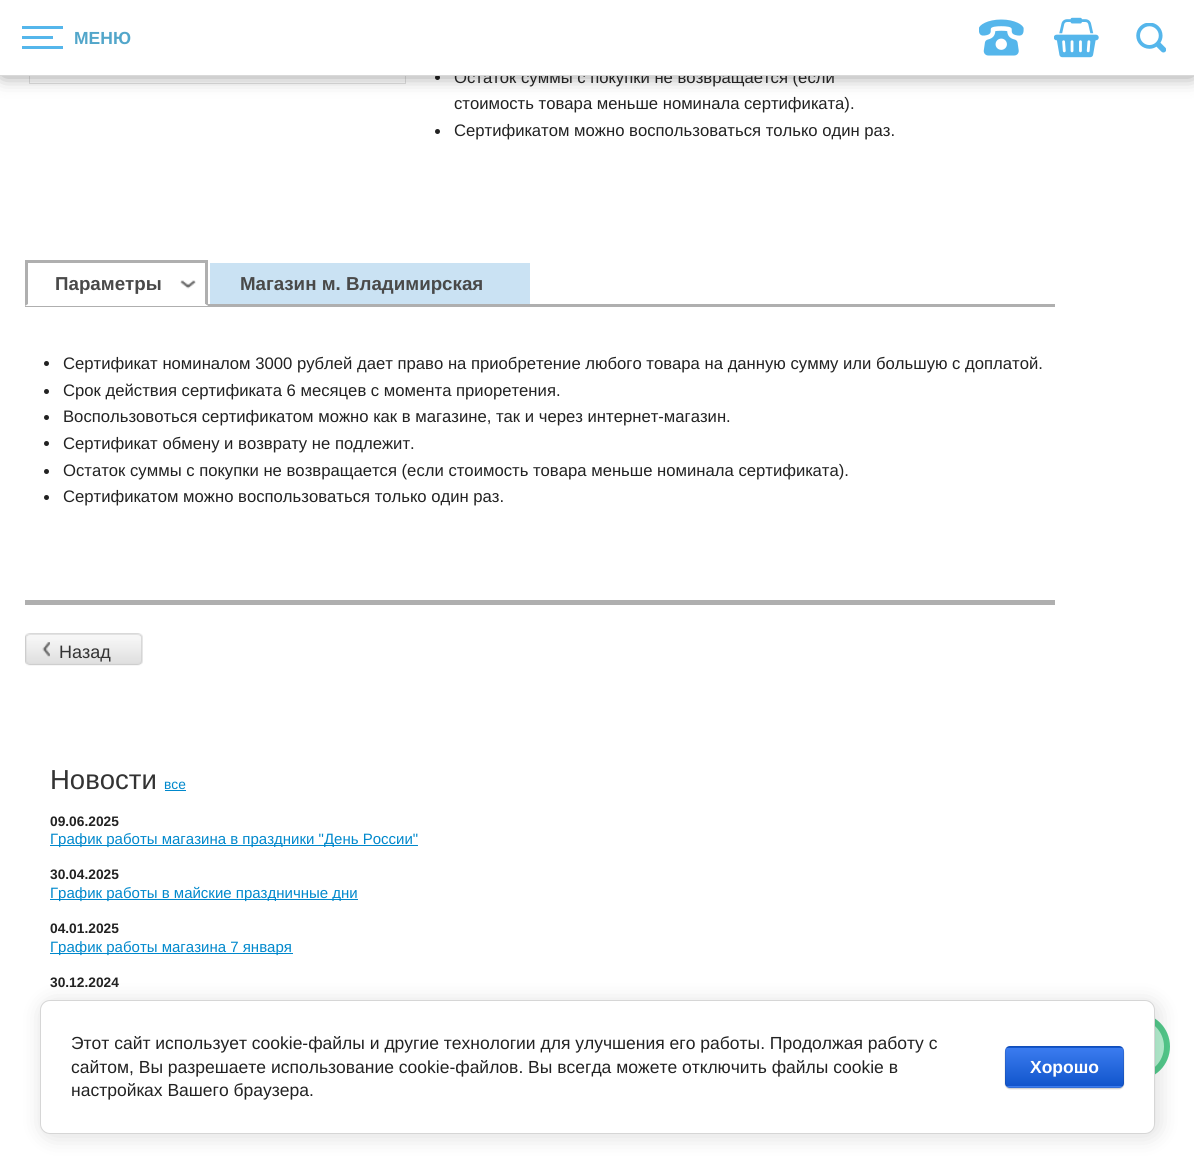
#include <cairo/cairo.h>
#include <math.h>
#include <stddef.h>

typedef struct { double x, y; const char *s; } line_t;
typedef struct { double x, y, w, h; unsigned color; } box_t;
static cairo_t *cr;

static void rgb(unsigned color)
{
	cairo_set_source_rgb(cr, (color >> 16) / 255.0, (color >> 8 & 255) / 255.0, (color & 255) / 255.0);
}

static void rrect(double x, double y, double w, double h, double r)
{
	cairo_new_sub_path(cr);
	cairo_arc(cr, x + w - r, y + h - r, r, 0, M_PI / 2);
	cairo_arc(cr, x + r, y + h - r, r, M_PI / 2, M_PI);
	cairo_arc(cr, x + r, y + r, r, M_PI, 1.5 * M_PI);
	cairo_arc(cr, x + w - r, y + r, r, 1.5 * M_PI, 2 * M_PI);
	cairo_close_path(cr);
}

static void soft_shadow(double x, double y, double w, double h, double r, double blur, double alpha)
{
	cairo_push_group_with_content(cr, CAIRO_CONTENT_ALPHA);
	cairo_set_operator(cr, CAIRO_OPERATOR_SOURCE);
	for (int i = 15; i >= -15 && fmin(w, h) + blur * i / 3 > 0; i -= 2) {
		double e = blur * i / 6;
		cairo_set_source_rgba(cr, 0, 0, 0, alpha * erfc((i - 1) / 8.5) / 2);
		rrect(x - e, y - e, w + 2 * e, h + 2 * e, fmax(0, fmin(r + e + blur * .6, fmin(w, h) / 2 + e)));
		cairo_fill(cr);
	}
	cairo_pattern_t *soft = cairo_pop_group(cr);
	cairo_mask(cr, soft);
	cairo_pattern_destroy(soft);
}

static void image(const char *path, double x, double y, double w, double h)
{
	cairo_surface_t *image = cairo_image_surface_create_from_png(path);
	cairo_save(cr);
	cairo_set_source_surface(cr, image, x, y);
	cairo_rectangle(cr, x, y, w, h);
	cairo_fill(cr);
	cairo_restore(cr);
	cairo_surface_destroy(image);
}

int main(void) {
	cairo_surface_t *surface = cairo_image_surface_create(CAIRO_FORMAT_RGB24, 1194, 1173);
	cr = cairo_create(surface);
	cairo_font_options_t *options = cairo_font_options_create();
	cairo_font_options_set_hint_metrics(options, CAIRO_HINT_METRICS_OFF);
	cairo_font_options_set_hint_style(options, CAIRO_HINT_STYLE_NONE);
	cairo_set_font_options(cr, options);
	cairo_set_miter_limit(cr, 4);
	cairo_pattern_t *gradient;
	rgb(0xffffff);
	cairo_paint(cr);
	cairo_rectangle(cr, 29.5, -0.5, 376, 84);
	rgb(0xe0e0e0);
	cairo_set_line_width(cr, 1);
	cairo_stroke(cr);
	rgb(0x222222);
	cairo_arc(cr, 437.5, 77.5, 2.5, 0, 2 * M_PI);
	cairo_fill(cr);
	rgb(0x000000);
	soft_shadow(3, 3, 1190, 71, 0, 10, 0.5);
	rgb(0x222222);
	cairo_arc(cr, 437.5, 131.5, 2.5, 0, 2 * M_PI);
	cairo_fill(cr);
	{
		static const box_t items[] = {
			{25, 600, 1030, 5, 0xafafaf},
			{25, 304, 1030, 3, 0xafafaf},
			{25, 304, 183, 2, 0xffffff},
		};
		for (size_t i = 0; i < sizeof items / sizeof *items; i++) {
			rgb(items[i].color);
			cairo_rectangle(cr, items[i].x, items[i].y, items[i].w, items[i].h);
			cairo_fill(cr);
		}
	}
	image("img/4.png", 180, 280, 16, 9);
	rgb(0xafafaf);
	cairo_rectangle(cr, 25, 260, 183, 3);
	cairo_fill(cr);
	cairo_new_path(cr);
	cairo_move_to(cr, 208, 260);
	cairo_line_to(cr, 208, 306);
	cairo_line_to(cr, 205, 304);
	cairo_line_to(cr, 205, 262);
	cairo_close_path(cr);
	cairo_fill(cr);
	rgb(0xffffff);
	cairo_new_path(cr);
	cairo_move_to(cr, 208, 306);
	cairo_line_to(cr, 25, 306);
	cairo_line_to(cr, 28, 304);
	cairo_line_to(cr, 205, 304);
	cairo_close_path(cr);
	cairo_fill(cr);
	rgb(0xafafaf);
	cairo_new_path(cr);
	cairo_move_to(cr, 25, 306);
	cairo_line_to(cr, 25, 260);
	cairo_line_to(cr, 28, 262);
	cairo_line_to(cr, 28, 304);
	cairo_close_path(cr);
	cairo_fill(cr);
	rgb(0xcae2f3);
	cairo_rectangle(cr, 210, 263, 320, 41);
	cairo_fill(cr);
	rgb(0x222222);
	cairo_arc(cr, 46.5, 363.5, 2.5, 0, 2 * M_PI);
	cairo_fill(cr);
	cairo_arc(cr, 46.5, 391.5, 2.5, 0, 2 * M_PI);
	cairo_fill(cr);
	cairo_arc(cr, 46.5, 417.5, 2.5, 0, 2 * M_PI);
	cairo_fill(cr);
	cairo_arc(cr, 46.5, 443.5, 2.5, 0, 2 * M_PI);
	cairo_fill(cr);
	cairo_arc(cr, 46.5, 471.5, 2.5, 0, 2 * M_PI);
	cairo_fill(cr);
	cairo_arc(cr, 46.5, 497.5, 2.5, 0, 2 * M_PI);
	cairo_fill(cr);
	image("img/5.png", 25, 633, 118, 33);
	image("img/6.png", 42, 642, 8, 15);
	{
		static const box_t items[] = {
			{165, 790, 21, 1, 0x0088cc},
			{50, 845, 368, 1, 0x0088cc},
			{50, 899, 308, 1, 0x0088cc},
			{50, 953, 243, 1, 0x0088cc},
		};
		for (size_t i = 0; i < sizeof items / sizeof *items; i++) {
			rgb(items[i].color);
			cairo_rectangle(cr, items[i].x, items[i].y, items[i].w, items[i].h);
			cairo_fill(cr);
		}
	}
	rgb(0xb6f1d2);
	cairo_arc(cr, 1136.5, 1046.5, 30.5, 0, 2 * M_PI);
	cairo_fill_preserve(cr);
	rgb(0x53c98b);
	cairo_set_line_width(cr, 6);
	cairo_stroke(cr);
	rgb(0x000000);
	soft_shadow(43, 1003, 1115, 133, 10, 11, 0.14);
	rgb(0xffffff);
	rrect(40.5, 1000.5, 1114, 133, 9.5);
	cairo_fill_preserve(cr);
	rgb(0xd6d6d6);
	cairo_set_line_width(cr, 1);
	cairo_stroke(cr);
	rgb(0x000000);
	soft_shadow(1005, 1048, 119, 41, 5, 0.5, 0.2);
	cairo_save(cr);
	rrect(1005, 1046, 119, 42, 5);
	cairo_clip(cr);
	gradient = cairo_pattern_create_linear(1064, 1009, 1064, 1048);
	cairo_pattern_add_color_stop_rgba(gradient, 0, 0.231, 0.486, 0.937, 1);
	cairo_pattern_add_color_stop_rgba(gradient, 1, 0.067, 0.333, 0.8, 1);
	cairo_set_source(cr, gradient);
	cairo_pattern_destroy(gradient);
	cairo_rectangle(cr, 1005, 1046, 119, 2);
	cairo_fill(cr);
	gradient = cairo_pattern_create_linear(1064, 1048, 1064, 1086);
	cairo_pattern_add_color_stop_rgba(gradient, 0, 0.231, 0.486, 0.937, 1);
	cairo_pattern_add_color_stop_rgba(gradient, 1, 0.067, 0.333, 0.8, 1);
	cairo_set_source(cr, gradient);
	cairo_pattern_destroy(gradient);
	cairo_rectangle(cr, 1005, 1048, 119, 38);
	cairo_fill(cr);
	gradient = cairo_pattern_create_linear(1064, 1086, 1064, 1125);
	cairo_pattern_add_color_stop_rgba(gradient, 0, 0.231, 0.486, 0.937, 1);
	cairo_pattern_add_color_stop_rgba(gradient, 1, 0.067, 0.333, 0.8, 1);
	cairo_set_source(cr, gradient);
	cairo_pattern_destroy(gradient);
	cairo_rectangle(cr, 1005, 1086, 119, 2);
	cairo_fill(cr);
	cairo_restore(cr);
	rrect(1005.5, 1046.5, 118, 41, 4.5);
	cairo_set_source_rgba(cr, 0, 0, 0, 0.1);
	cairo_stroke(cr);
	cairo_select_font_face(cr, "Liberation Sans", CAIRO_FONT_SLANT_NORMAL, CAIRO_FONT_WEIGHT_NORMAL);
	cairo_set_font_size(cr, 16.67);
	rgb(0x222222);
	cairo_move_to(cr, 454, 83);
	cairo_show_text(cr, "Остаток суммы с покупки не возвращается (если");
	rgb(0xffffff);
	cairo_rectangle(cr, 0, 0, 1194, 75);
	cairo_fill(cr);
	image("img/3.png", 1136, 23, 30, 30);
	image("img/2.png", 1054, 17, 45, 41);
	image("img/1.png", 979, 19, 45, 37);
	rgb(0x55b6eb);
	cairo_new_path(cr);
	cairo_move_to(cr, 22, 26);
	cairo_line_to(cr, 63, 26);
	cairo_line_to(cr, 63, 29);
	cairo_line_to(cr, 22, 29);
	cairo_close_path(cr);
	cairo_move_to(cr, 22, 36);
	cairo_line_to(cr, 53, 36);
	cairo_line_to(cr, 53, 39);
	cairo_line_to(cr, 22, 39);
	cairo_close_path(cr);
	cairo_move_to(cr, 22, 46);
	cairo_line_to(cr, 63, 46);
	cairo_line_to(cr, 63, 49);
	cairo_line_to(cr, 22, 49);
	cairo_close_path(cr);
	cairo_fill(cr);
	cairo_select_font_face(cr, "Liberation Sans", CAIRO_FONT_SLANT_NORMAL, CAIRO_FONT_WEIGHT_BOLD);
	cairo_set_font_size(cr, 17.5);
	rgb(0x52a6ca);
	cairo_move_to(cr, 74, 44);
	cairo_show_text(cr, "МЕНЮ");
	rgb(0xd9d9d9);
	cairo_rectangle(cr, 0, 75, 1194, 1);
	cairo_fill(cr);
	cairo_select_font_face(cr, "Liberation Sans", CAIRO_FONT_SLANT_NORMAL, CAIRO_FONT_WEIGHT_NORMAL);
	cairo_set_font_size(cr, 16.67);
	rgb(0x222222);
	cairo_move_to(cr, 454, 109);
	cairo_show_text(cr, "стоимость товара меньше номинала сертификата).");
	cairo_move_to(cr, 454, 136);
	cairo_show_text(cr, "Сертификатом можно воспользоваться только один раз.");
	cairo_select_font_face(cr, "Liberation Sans", CAIRO_FONT_SLANT_NORMAL, CAIRO_FONT_WEIGHT_BOLD);
	cairo_set_font_size(cr, 18.75);
	rgb(0x494949);
	cairo_move_to(cr, 55, 290);
	cairo_show_text(cr, "Параметры");
	cairo_move_to(cr, 240, 290);
	cairo_show_text(cr, "Магазин м. Владимирская");
	cairo_select_font_face(cr, "Liberation Sans", CAIRO_FONT_SLANT_NORMAL, CAIRO_FONT_WEIGHT_NORMAL);
	cairo_set_font_size(cr, 16.67);
	rgb(0x222222);
	{
		static const line_t items[] = {
			{63, 369, "Сертификат номиналом 3000 рублей дает право на приобретение любого товара на данную сумму или большую с доплатой."},
			{63, 396, "Срок действия сертификата 6 месяцев с момента приоретения."},
			{63, 422, "Воспользовоться сертификатом можно как в магазине, так и через интернет-магазин."},
			{63, 449, "Сертификат обмену и возврату не подлежит."},
			{63, 476, "Остаток суммы с покупки не возвращается (если стоимость товара меньше номинала сертификата)."},
			{63, 502, "Сертификатом можно воспользоваться только один раз."},
		};
		for (size_t i = 0; i < sizeof items / sizeof *items; i++) {
			cairo_move_to(cr, items[i].x, items[i].y);
			cairo_show_text(cr, items[i].s);
		}
	}
	cairo_set_font_size(cr, 18);
	rgb(0x333333);
	cairo_move_to(cr, 59, 658);
	cairo_show_text(cr, "Назад");
	cairo_set_font_size(cr, 27.5);
	cairo_move_to(cr, 50, 789);
	cairo_show_text(cr, "Новости");
	cairo_set_font_size(cr, 13.75);
	rgb(0x0088cc);
	cairo_move_to(cr, 164, 789);
	cairo_show_text(cr, "все");
	cairo_select_font_face(cr, "Liberation Sans", CAIRO_FONT_SLANT_NORMAL, CAIRO_FONT_WEIGHT_BOLD);
	rgb(0x222222);
	cairo_move_to(cr, 50, 826);
	cairo_show_text(cr, "09.06.2025");
	cairo_select_font_face(cr, "Liberation Sans", CAIRO_FONT_SLANT_NORMAL, CAIRO_FONT_WEIGHT_NORMAL);
	cairo_set_font_size(cr, 15);
	rgb(0x0088cc);
	cairo_move_to(cr, 50, 844);
	cairo_show_text(cr, "График работы магазина в праздники \"День России\"");
	cairo_select_font_face(cr, "Liberation Sans", CAIRO_FONT_SLANT_NORMAL, CAIRO_FONT_WEIGHT_BOLD);
	cairo_set_font_size(cr, 13.75);
	rgb(0x222222);
	cairo_move_to(cr, 50, 879);
	cairo_show_text(cr, "30.04.2025");
	cairo_select_font_face(cr, "Liberation Sans", CAIRO_FONT_SLANT_NORMAL, CAIRO_FONT_WEIGHT_NORMAL);
	cairo_set_font_size(cr, 15);
	rgb(0x0088cc);
	cairo_move_to(cr, 50, 898);
	cairo_show_text(cr, "График работы в майские праздничные дни");
	cairo_select_font_face(cr, "Liberation Sans", CAIRO_FONT_SLANT_NORMAL, CAIRO_FONT_WEIGHT_BOLD);
	cairo_set_font_size(cr, 13.75);
	rgb(0x222222);
	cairo_move_to(cr, 50, 933);
	cairo_show_text(cr, "04.01.2025");
	cairo_select_font_face(cr, "Liberation Sans", CAIRO_FONT_SLANT_NORMAL, CAIRO_FONT_WEIGHT_NORMAL);
	cairo_set_font_size(cr, 15);
	rgb(0x0088cc);
	cairo_move_to(cr, 50, 952);
	cairo_show_text(cr, "График работы магазина 7 января");
	cairo_select_font_face(cr, "Liberation Sans", CAIRO_FONT_SLANT_NORMAL, CAIRO_FONT_WEIGHT_BOLD);
	cairo_set_font_size(cr, 13.75);
	rgb(0x222222);
	cairo_move_to(cr, 50, 987);
	cairo_show_text(cr, "30.12.2024");
	cairo_select_font_face(cr, "Liberation Sans", CAIRO_FONT_SLANT_NORMAL, CAIRO_FONT_WEIGHT_NORMAL);
	cairo_set_font_size(cr, 17.5);
	{
		static const line_t items[] = {
			{71, 1049, "Этот сайт использует cookie-файлы и другие технологии для улучшения его работы. Продолжая работу с"},
			{71, 1073, "сайтом, Вы разрешаете использование cookie-файлов. Вы всегда можете отключить файлы cookie в"},
			{71, 1096, "настройках Вашего браузера."},
		};
		for (size_t i = 0; i < sizeof items / sizeof *items; i++) {
			cairo_move_to(cr, items[i].x, items[i].y);
			cairo_show_text(cr, items[i].s);
		}
	}
	cairo_select_font_face(cr, "Liberation Sans", CAIRO_FONT_SLANT_NORMAL, CAIRO_FONT_WEIGHT_BOLD);
	rgb(0xffffff);
	cairo_move_to(cr, 1030, 1073);
	cairo_show_text(cr, "Хорошо");
	cairo_surface_write_to_png(surface, "page.png");
	cairo_font_options_destroy(options);
	cairo_destroy(cr);
	cairo_surface_destroy(surface);
	return 0;
}
